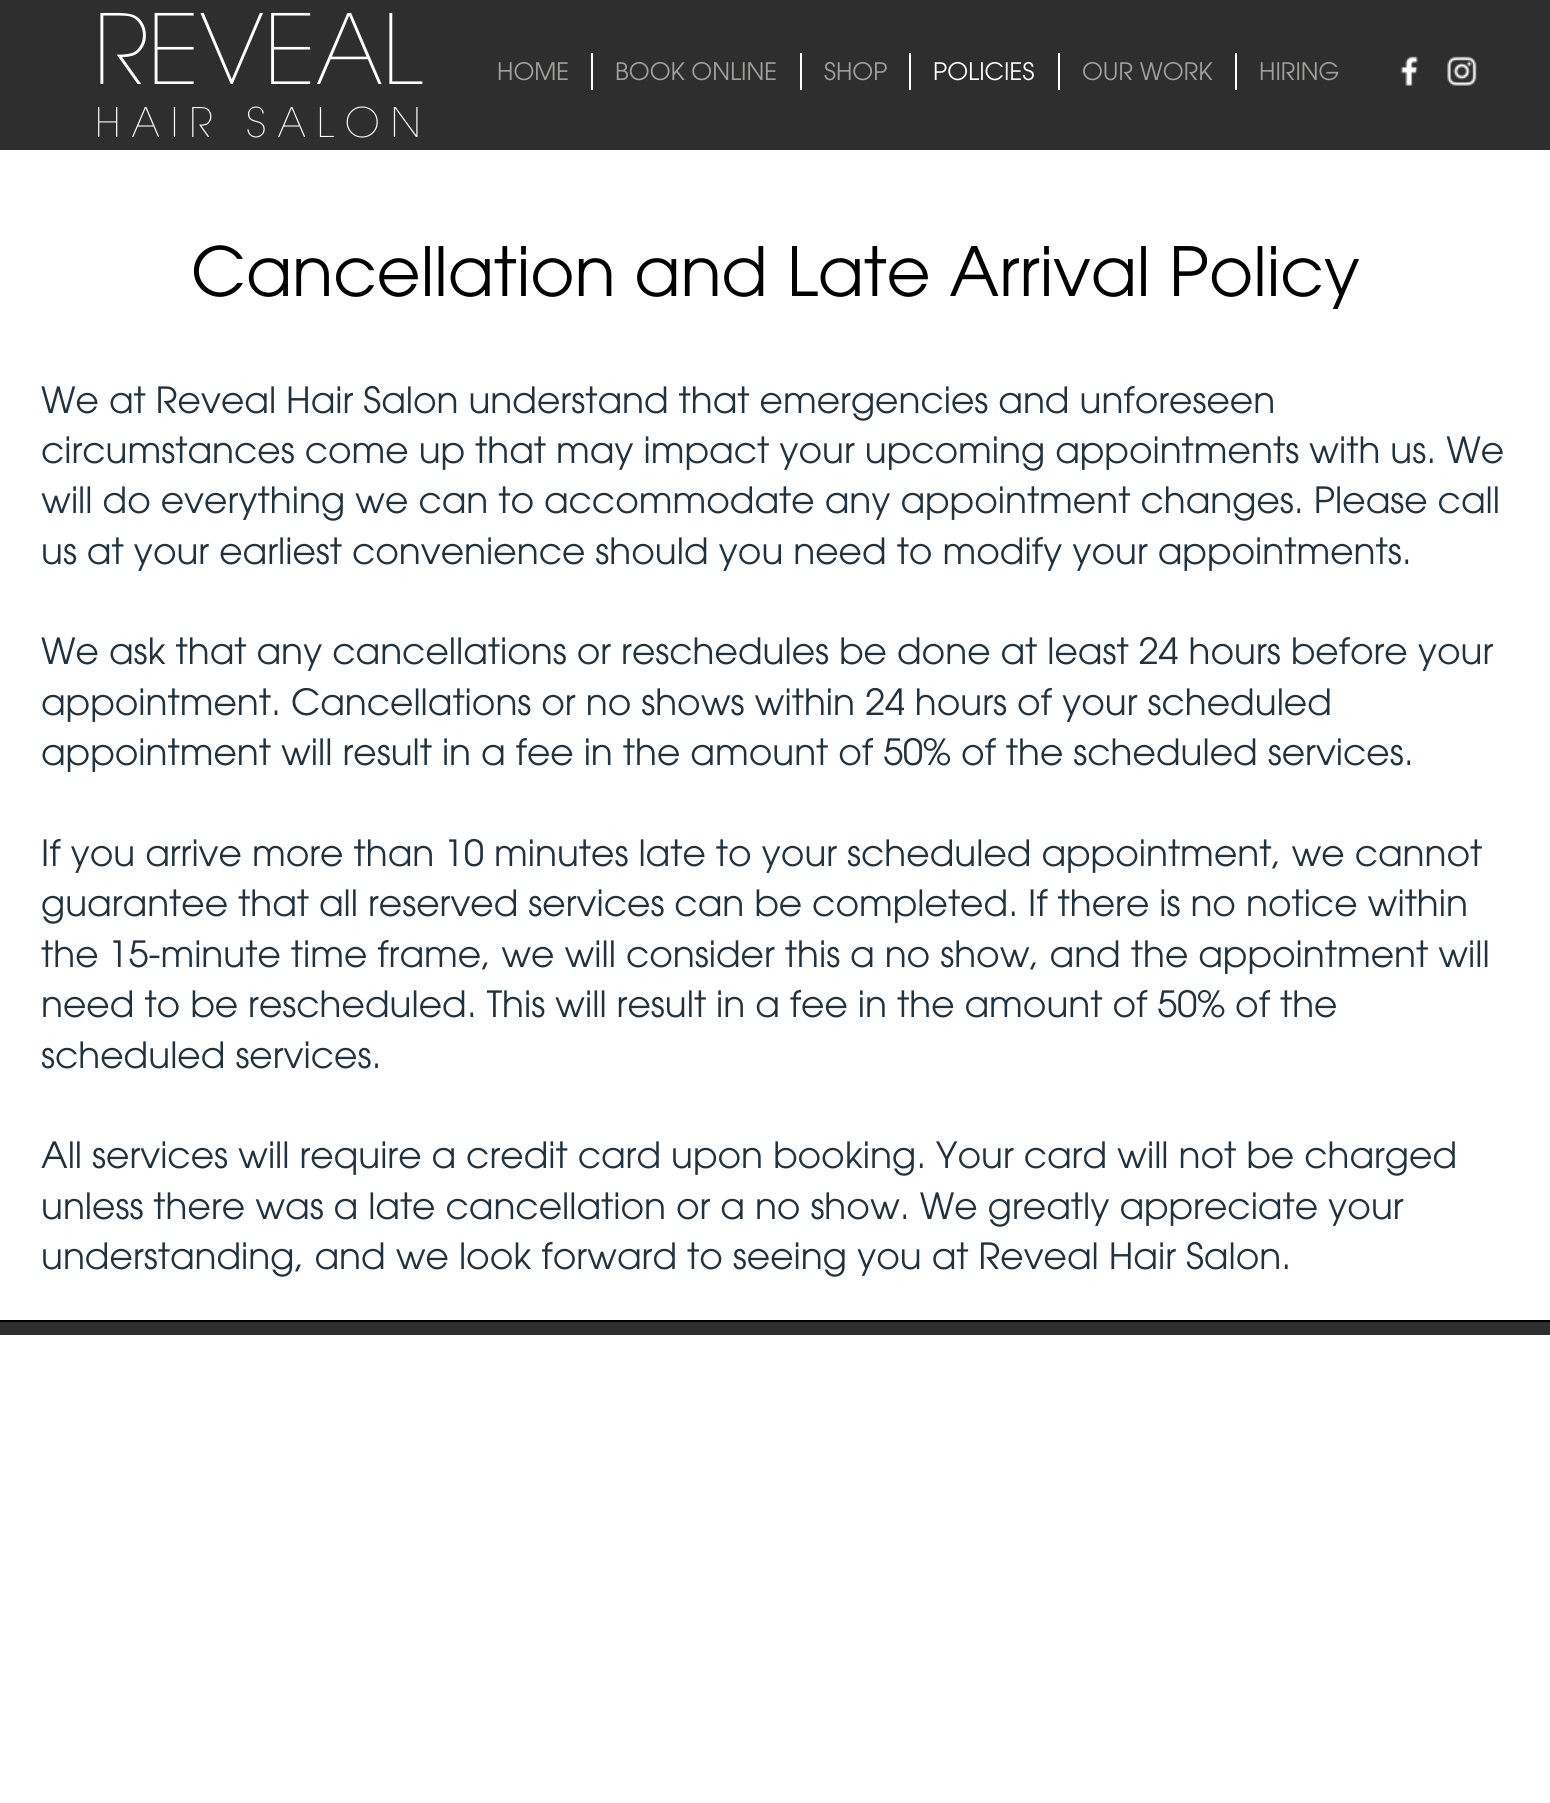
#include <cairo/cairo.h>
#include <math.h>
#include <stddef.h>

typedef struct { double x, y; const char *s; } line_t;
typedef struct { double x, y, w, h; unsigned color; } box_t;
static cairo_t *cr;

static void rgb(unsigned color)
{
	cairo_set_source_rgb(cr, (color >> 16) / 255.0, (color >> 8 & 255) / 255.0, (color & 255) / 255.0);
}

static void image(const char *path, double x, double y, double w, double h)
{
	cairo_surface_t *image = cairo_image_surface_create_from_png(path);
	cairo_save(cr);
	cairo_set_source_surface(cr, image, x, y);
	cairo_rectangle(cr, x, y, w, h);
	cairo_fill(cr);
	cairo_restore(cr);
	cairo_surface_destroy(image);
}

int main(void) {
	cairo_surface_t *surface = cairo_image_surface_create(CAIRO_FORMAT_RGB24, 1550, 1803);
	cr = cairo_create(surface);
	cairo_font_options_t *options = cairo_font_options_create();
	cairo_font_options_set_hint_metrics(options, CAIRO_HINT_METRICS_OFF);
	cairo_font_options_set_hint_style(options, CAIRO_HINT_STYLE_NONE);
	cairo_set_font_options(cr, options);
	cairo_set_miter_limit(cr, 4);
	rgb(0xffffff);
	cairo_paint(cr);
	{
		static const box_t items[] = {
			{0, 0, 1550, 150, 0x2f2e2e},
			{591, 53, 2, 37, 0xffffff},
			{800, 53, 2, 37, 0xffffff},
			{909, 53, 2, 37, 0xffffff},
			{1058, 53, 2, 37, 0xffffff},
			{1235, 53, 2, 37, 0xffffff},
		};
		for (size_t i = 0; i < sizeof items / sizeof *items; i++) {
			rgb(items[i].color);
			cairo_rectangle(cr, items[i].x, items[i].y, items[i].w, items[i].h);
			cairo_fill(cr);
		}
	}
	image("img/1.png", 1400, 56, 18, 30);
	image("img/2.png", 1447, 56, 30, 30);
	rgb(0x2f2e2e);
	cairo_rectangle(cr, 0, 1322, 1550, 13);
	cairo_fill(cr);
	rgb(0x000000);
	cairo_rectangle(cr, 0, 1320, 1550, 2);
	cairo_fill(cr);
	cairo_select_font_face(cr, "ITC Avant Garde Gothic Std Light", CAIRO_FONT_SLANT_NORMAL, CAIRO_FONT_WEIGHT_NORMAL);
	cairo_set_font_size(cr, 96);
	rgb(0xffffff);
	cairo_move_to(cr, 94, 84);
	cairo_show_text(cr, "REVEAL");
	cairo_select_font_face(cr, "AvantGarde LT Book", CAIRO_FONT_SLANT_NORMAL, CAIRO_FONT_WEIGHT_NORMAL);
	cairo_set_font_size(cr, 24);
	rgb(0xa0a09f);
	{
		static const line_t items[] = {
			{497, 80, "HOME"},
			{615, 80, "BOOK ONLINE"},
			{824, 80, "SHOP"},
		};
		for (size_t i = 0; i < sizeof items / sizeof *items; i++) {
			cairo_move_to(cr, items[i].x, items[i].y);
			cairo_show_text(cr, items[i].s);
		}
	}
	rgb(0xffffff);
	cairo_move_to(cr, 933, 80);
	cairo_show_text(cr, "POLICIES");
	rgb(0xa0a09f);
	cairo_move_to(cr, 1082, 80);
	cairo_show_text(cr, "OUR WORK");
	cairo_move_to(cr, 1259, 80);
	cairo_show_text(cr, "HIRING");
	cairo_select_font_face(cr, "ITC Avant Garde Gothic Std Light", CAIRO_FONT_SLANT_NORMAL, CAIRO_FONT_WEIGHT_NORMAL);
	cairo_set_font_size(cr, 40.5);
	rgb(0xffffff);
	cairo_move_to(cr, 95, 137);
	cairo_show_text(cr, "H A I R   S A L O N");
	cairo_select_font_face(cr, "AvantGarde LT Book", CAIRO_FONT_SLANT_NORMAL, CAIRO_FONT_WEIGHT_NORMAL);
	cairo_set_font_size(cr, 67.5);
	rgb(0x000000);
	cairo_move_to(cr, 191, 296);
	cairo_show_text(cr, "Cancellation and Late Arrival Policy");
	cairo_set_font_size(cr, 36);
	rgb(0x203240);
	{
		static const line_t items[] = {
			{41, 413, "We at Reveal Hair Salon understand that emergencies and unforeseen"},
			{41, 463, "circumstances come up that may impact your upcoming appointments with us. We"},
			{41, 513, "will do everything we can to accommodate any appointment changes. Please call"},
			{41, 564, "us at your earliest convenience should you need to modify your appointments."},
			{41, 664, "We ask that any cancellations or reschedules be done at least 24 hours before your"},
			{41, 715, "appointment. Cancellations or no shows within 24 hours of your scheduled"},
			{41, 765, "appointment will result in a fee in the amount of 50% of the scheduled services."},
			{41, 866, "If you arrive more than 10 minutes late to your scheduled appointment, we cannot"},
			{41, 916, "guarantee that all reserved services can be completed. If there is no notice within"},
			{41, 967, "the 15-minute time frame, we will consider this a no show, and the appointment will"},
			{41, 1017, "need to be rescheduled. This will result in a fee in the amount of 50% of the"},
			{41, 1068, "scheduled services."},
			{41, 1168, "All services will require a credit card upon booking. Your card will not be charged"},
			{41, 1219, "unless there was a late cancellation or a no show. We greatly appreciate your"},
			{41, 1269, "understanding, and we look forward to seeing you at Reveal Hair Salon."},
		};
		for (size_t i = 0; i < sizeof items / sizeof *items; i++) {
			cairo_move_to(cr, items[i].x, items[i].y);
			cairo_show_text(cr, items[i].s);
		}
	}
	cairo_surface_write_to_png(surface, "page.png");
	cairo_font_options_destroy(options);
	cairo_destroy(cr);
	cairo_surface_destroy(surface);
	return 0;
}
